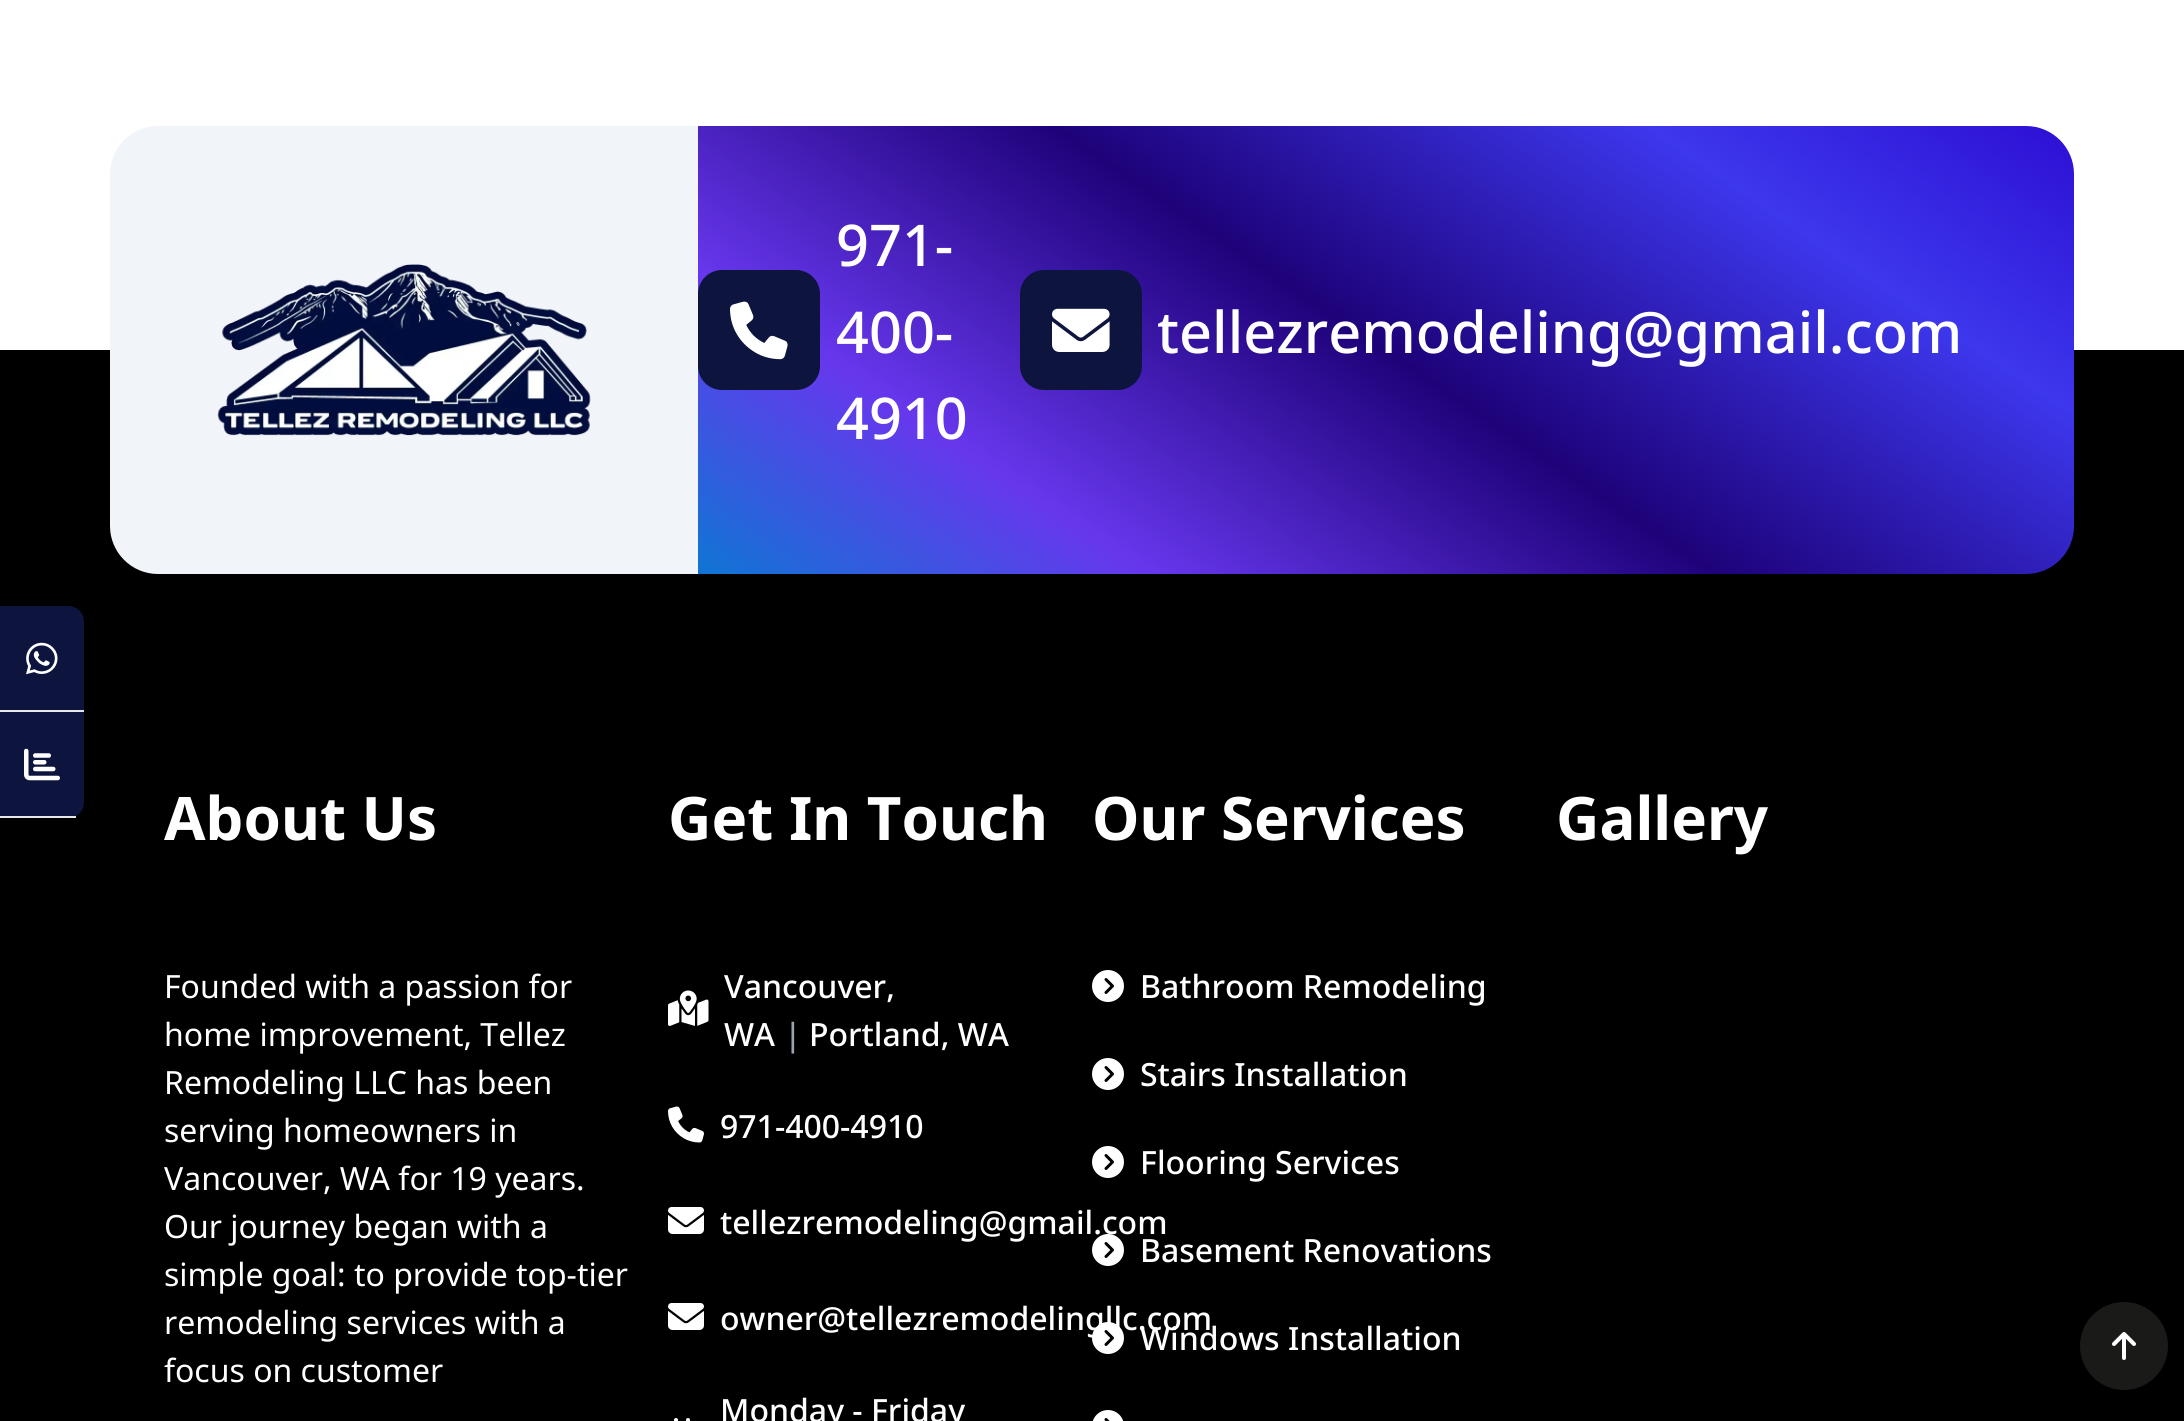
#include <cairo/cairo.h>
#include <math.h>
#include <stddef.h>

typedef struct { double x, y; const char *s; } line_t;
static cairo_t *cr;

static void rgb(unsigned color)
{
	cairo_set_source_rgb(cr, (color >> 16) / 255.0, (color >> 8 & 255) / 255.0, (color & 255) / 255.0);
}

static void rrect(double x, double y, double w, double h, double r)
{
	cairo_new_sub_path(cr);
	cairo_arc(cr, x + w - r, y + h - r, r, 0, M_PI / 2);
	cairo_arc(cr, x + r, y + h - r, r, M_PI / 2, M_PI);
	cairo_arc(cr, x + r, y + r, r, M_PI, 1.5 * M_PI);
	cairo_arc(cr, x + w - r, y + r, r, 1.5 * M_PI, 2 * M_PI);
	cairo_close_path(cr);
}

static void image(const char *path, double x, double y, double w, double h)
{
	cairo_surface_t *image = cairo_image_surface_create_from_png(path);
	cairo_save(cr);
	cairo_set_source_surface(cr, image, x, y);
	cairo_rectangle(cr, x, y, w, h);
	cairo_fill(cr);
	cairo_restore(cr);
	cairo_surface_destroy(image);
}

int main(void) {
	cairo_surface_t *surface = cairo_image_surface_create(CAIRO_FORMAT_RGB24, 2184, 1421);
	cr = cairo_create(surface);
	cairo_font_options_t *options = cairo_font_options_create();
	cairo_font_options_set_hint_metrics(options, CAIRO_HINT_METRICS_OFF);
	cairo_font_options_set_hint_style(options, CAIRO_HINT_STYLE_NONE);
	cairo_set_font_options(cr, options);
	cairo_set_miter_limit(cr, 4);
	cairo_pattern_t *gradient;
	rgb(0xffffff);
	cairo_paint(cr);
	rgb(0x000000);
	cairo_rectangle(cr, 0, 350, 2184, 1071);
	cairo_fill(cr);
	rgb(0x0d153e);
	cairo_new_path(cr);
	cairo_move_to(cr, 0, 606);
	cairo_line_to(cr, 68, 606);
	cairo_curve_to(cr, 77, 606, 84, 613, 84, 622);
	cairo_line_to(cr, 84, 802);
	cairo_curve_to(cr, 84, 811, 77, 818, 68, 818);
	cairo_line_to(cr, 0, 818);
	cairo_close_path(cr);
	cairo_fill(cr);
	rgb(0xe5e7eb);
	cairo_rectangle(cr, 0, 710, 84, 2);
	cairo_fill(cr);
	image("img/1.png", 26, 642, 32, 33);
	cairo_rectangle(cr, 0, 816, 76, 2);
	cairo_fill(cr);
	image("img/2.png", 24, 748, 36, 33);
	rgb(0xf1f5f9);
	cairo_new_path(cr);
	cairo_move_to(cr, 158, 126);
	cairo_line_to(cr, 698, 126);
	cairo_line_to(cr, 698, 574);
	cairo_line_to(cr, 158, 574);
	cairo_curve_to(cr, 131.5, 574, 110, 552.5, 110, 526);
	cairo_line_to(cr, 110, 174);
	cairo_curve_to(cr, 110, 147.5, 131.5, 126, 158, 126);
	cairo_close_path(cr);
	cairo_fill(cr);
	image("img/3.png", 217, 264, 374, 172);
	gradient = cairo_pattern_create_linear(1067, 823, 1705, -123);
	cairo_pattern_add_color_stop_rgba(gradient, 0, 0.059, 0.459, 0.831, 1);
	cairo_pattern_add_color_stop_rgba(gradient, 0.22, 0.404, 0.216, 0.929, 1);
	cairo_pattern_add_color_stop_rgba(gradient, 0.5, 0.118, 0.008, 0.478, 1);
	cairo_pattern_add_color_stop_rgba(gradient, 0.79, 0.239, 0.216, 0.929, 1);
	cairo_pattern_add_color_stop_rgba(gradient, 1, 0.176, 0.059, 0.831, 1);
	cairo_set_source(cr, gradient);
	cairo_pattern_destroy(gradient);
	cairo_new_path(cr);
	cairo_move_to(cr, 698, 126);
	cairo_line_to(cr, 2026, 126);
	cairo_curve_to(cr, 2052.5, 126, 2074, 147.5, 2074, 174);
	cairo_line_to(cr, 2074, 526);
	cairo_curve_to(cr, 2074, 552.5, 2052.5, 574, 2026, 574);
	cairo_line_to(cr, 698, 574);
	cairo_close_path(cr);
	cairo_fill(cr);
	rgb(0x0d153e);
	rrect(698, 270, 122, 120, 24);
	cairo_fill(cr);
	image("img/4.png", 730, 301, 58, 59);
	rrect(1020, 270, 122, 120, 24);
	cairo_fill(cr);
	image("img/5.png", 1052, 308, 58, 44);
	image("img/6.png", 668, 990, 41, 36);
	image("img/7.png", 668, 1106, 36, 37);
	image("img/8.png", 668, 1207, 36, 27);
	image("img/8.png", 668, 1303, 36, 27);
	image("img/9.png", 674, 1418, 16, 3);
	image("img/10.png", 1092, 970, 32, 32);
	image("img/10.png", 1092, 1058, 32, 32);
	image("img/10.png", 1092, 1146, 32, 32);
	image("img/13.png", 1092, 1410, 32, 11);
	rgb(0x1a1a19);
	cairo_arc(cr, 2124, 1346, 44, 0, 2 * M_PI);
	cairo_fill(cr);
	image("img/14.png", 2112, 1332, 24, 28);
	cairo_select_font_face(cr, "Noto Sans Medium", CAIRO_FONT_SLANT_NORMAL, CAIRO_FONT_WEIGHT_NORMAL);
	cairo_set_font_size(cr, 57.6);
	rgb(0xffffff);
	{
		static const line_t items[] = {
			{836, 266, "971-"},
			{836, 353, "400-"},
			{836, 439, "4910"},
			{1157, 353, "tellezremodeling@gmail.com"},
		};
		for (size_t i = 0; i < sizeof items / sizeof *items; i++) {
			cairo_move_to(cr, items[i].x, items[i].y);
			cairo_show_text(cr, items[i].s);
		}
	}
	cairo_select_font_face(cr, "Noto Sans", CAIRO_FONT_SLANT_NORMAL, CAIRO_FONT_WEIGHT_BOLD);
	cairo_set_font_size(cr, 60);
	cairo_move_to(cr, 164, 840);
	cairo_show_text(cr, "About Us");
	cairo_select_font_face(cr, "Noto Sans", CAIRO_FONT_SLANT_NORMAL, CAIRO_FONT_WEIGHT_NORMAL);
	cairo_set_font_size(cr, 32);
	{
		static const line_t items[] = {
			{164, 998, "Founded with a passion for"},
			{164, 1046, "home improvement, Tellez"},
			{164, 1094, "Remodeling LLC has been"},
			{164, 1142, "serving homeowners in"},
			{164, 1190, "Vancouver, WA for 19 years."},
			{164, 1238, "Our journey began with a"},
			{164, 1286, "simple goal: to provide top-tier"},
			{164, 1334, "remodeling services with a"},
			{164, 1382, "focus on customer"},
		};
		for (size_t i = 0; i < sizeof items / sizeof *items; i++) {
			cairo_move_to(cr, items[i].x, items[i].y);
			cairo_show_text(cr, items[i].s);
		}
	}
	cairo_select_font_face(cr, "Noto Sans", CAIRO_FONT_SLANT_NORMAL, CAIRO_FONT_WEIGHT_BOLD);
	cairo_set_font_size(cr, 60);
	cairo_move_to(cr, 668, 840);
	cairo_show_text(cr, "Get In Touch");
	cairo_select_font_face(cr, "Noto Sans Medium", CAIRO_FONT_SLANT_NORMAL, CAIRO_FONT_WEIGHT_NORMAL);
	cairo_set_font_size(cr, 32);
	cairo_move_to(cr, 724, 998);
	cairo_show_text(cr, "Vancouver,");
	cairo_move_to(cr, 724, 1046);
	cairo_show_text(cr, "WA");
	rgb(0x9ca3af);
	cairo_move_to(cr, 784, 1046);
	cairo_show_text(cr, "|");
	rgb(0xffffff);
	{
		static const line_t items[] = {
			{809, 1046, "Portland, WA"},
			{720, 1138, "971-400-4910"},
			{720, 1234, "tellezremodeling@gmail.com"},
			{720, 1330, "owner@tellezremodelingllc.com"},
			{720, 1422, "Monday - Friday"},
		};
		for (size_t i = 0; i < sizeof items / sizeof *items; i++) {
			cairo_move_to(cr, items[i].x, items[i].y);
			cairo_show_text(cr, items[i].s);
		}
	}
	cairo_select_font_face(cr, "Noto Sans", CAIRO_FONT_SLANT_NORMAL, CAIRO_FONT_WEIGHT_BOLD);
	cairo_set_font_size(cr, 60);
	cairo_move_to(cr, 1092, 840);
	cairo_show_text(cr, "Our Services");
	cairo_select_font_face(cr, "Noto Sans Medium", CAIRO_FONT_SLANT_NORMAL, CAIRO_FONT_WEIGHT_NORMAL);
	cairo_set_font_size(cr, 32);
	{
		static const line_t items[] = {
			{1140, 998, "Bathroom Remodeling"},
			{1140, 1086, "Stairs Installation"},
			{1140, 1174, "Flooring Services"},
		};
		for (size_t i = 0; i < sizeof items / sizeof *items; i++) {
			cairo_move_to(cr, items[i].x, items[i].y);
			cairo_show_text(cr, items[i].s);
		}
	}
	image("img/11.png", 1092, 1234, 32, 32);
	cairo_move_to(cr, 1140, 1262);
	cairo_show_text(cr, "Basement Renovations");
	image("img/12.png", 1092, 1322, 32, 32);
	cairo_move_to(cr, 1140, 1350);
	cairo_show_text(cr, "Windows Installation");
	cairo_select_font_face(cr, "Noto Sans", CAIRO_FONT_SLANT_NORMAL, CAIRO_FONT_WEIGHT_BOLD);
	cairo_set_font_size(cr, 60);
	cairo_move_to(cr, 1556, 840);
	cairo_show_text(cr, "Gallery");
	cairo_surface_write_to_png(surface, "page.png");
	cairo_font_options_destroy(options);
	cairo_destroy(cr);
	cairo_surface_destroy(surface);
	return 0;
}
